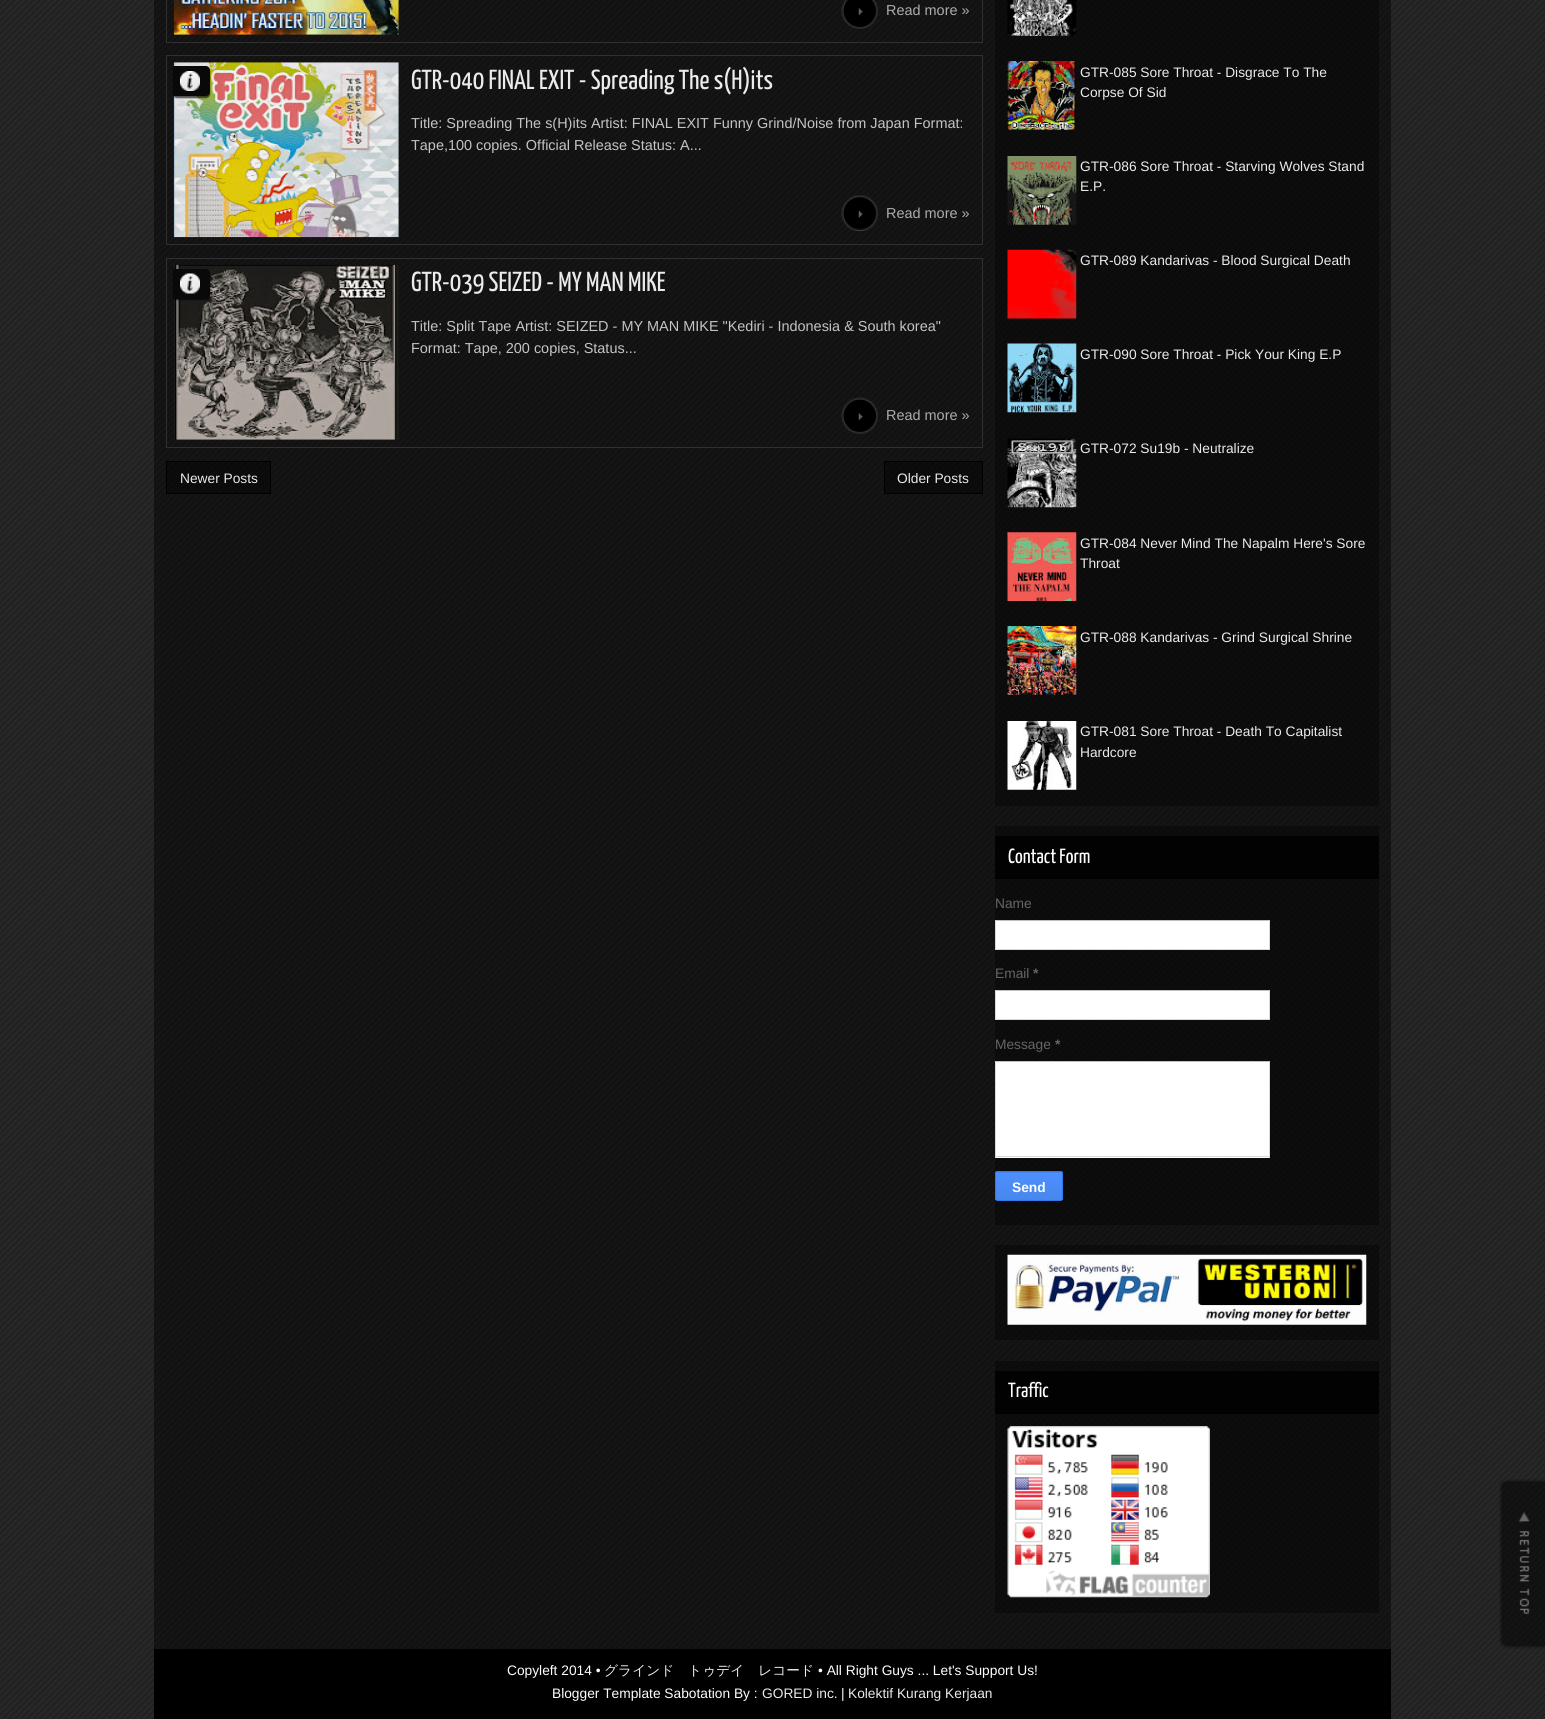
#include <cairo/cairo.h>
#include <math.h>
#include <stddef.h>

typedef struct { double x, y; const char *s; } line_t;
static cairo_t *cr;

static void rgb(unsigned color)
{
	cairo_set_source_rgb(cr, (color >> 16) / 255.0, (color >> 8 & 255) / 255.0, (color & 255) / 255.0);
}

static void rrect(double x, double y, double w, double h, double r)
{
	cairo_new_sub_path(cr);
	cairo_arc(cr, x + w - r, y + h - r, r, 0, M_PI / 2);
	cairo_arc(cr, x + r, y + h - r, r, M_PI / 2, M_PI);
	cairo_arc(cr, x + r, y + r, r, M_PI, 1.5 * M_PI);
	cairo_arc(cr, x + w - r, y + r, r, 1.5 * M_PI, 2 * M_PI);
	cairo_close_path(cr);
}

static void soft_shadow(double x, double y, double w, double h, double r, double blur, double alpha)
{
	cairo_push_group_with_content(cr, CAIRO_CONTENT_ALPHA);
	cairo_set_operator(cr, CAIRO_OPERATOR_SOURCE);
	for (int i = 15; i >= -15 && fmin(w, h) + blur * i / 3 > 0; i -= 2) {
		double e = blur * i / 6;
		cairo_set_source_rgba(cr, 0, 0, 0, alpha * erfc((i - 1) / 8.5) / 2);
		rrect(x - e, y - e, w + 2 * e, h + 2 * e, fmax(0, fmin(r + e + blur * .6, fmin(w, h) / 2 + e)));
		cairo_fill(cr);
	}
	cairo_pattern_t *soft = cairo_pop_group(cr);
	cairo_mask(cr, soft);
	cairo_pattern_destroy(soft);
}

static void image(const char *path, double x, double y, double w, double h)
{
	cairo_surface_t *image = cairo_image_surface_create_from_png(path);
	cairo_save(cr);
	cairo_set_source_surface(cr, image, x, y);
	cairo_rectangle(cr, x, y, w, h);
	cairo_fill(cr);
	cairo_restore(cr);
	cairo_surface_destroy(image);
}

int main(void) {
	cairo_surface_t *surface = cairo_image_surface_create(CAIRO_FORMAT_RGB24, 1545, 1719);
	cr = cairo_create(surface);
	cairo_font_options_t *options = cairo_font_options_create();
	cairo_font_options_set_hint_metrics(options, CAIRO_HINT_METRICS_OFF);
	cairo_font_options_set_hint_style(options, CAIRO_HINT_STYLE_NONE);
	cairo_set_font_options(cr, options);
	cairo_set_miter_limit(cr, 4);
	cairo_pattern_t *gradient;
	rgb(0x272727);
	cairo_paint(cr);
	image("img/1.png", 0, 0, 1545, 1719);
	cairo_set_source_rgba(cr, 0, 0, 0, 0.47);
	cairo_rectangle(cr, 154, 0, 1237, 1649);
	cairo_fill(cr);
	cairo_rectangle(cr, 166.5, -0.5, 816, 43);
	rgb(0x303030);
	cairo_set_line_width(cr, 1);
	cairo_stroke(cr);
	image("img/2.png", 173, 0, 226, 35);
	image("img/3.png", 841, 0, 37, 29);
	cairo_rectangle(cr, 166.5, 55.5, 816, 189);
	cairo_stroke(cr);
	image("img/4.png", 173, 62, 226, 176);
	rgb(0x000000);
	soft_shadow(173, 68, 37, 30, 4, 0.5, 0.63);
	rgb(0x090909);
	cairo_new_path(cr);
	cairo_move_to(cr, 173, 66);
	cairo_line_to(cr, 206, 66);
	cairo_curve_to(cr, 208, 66, 210, 68, 210, 70);
	cairo_line_to(cr, 210, 92);
	cairo_curve_to(cr, 210, 94, 208, 96, 206, 96);
	cairo_line_to(cr, 173, 96);
	cairo_close_path(cr);
	cairo_fill(cr);
	image("img/5.png", 180, 71, 20, 20);
	image("img/6.png", 841, 195, 37, 36);
	cairo_rectangle(cr, 166.5, 258.5, 816, 189);
	rgb(0x303030);
	cairo_stroke(cr);
	image("img/7.png", 174, 264, 225, 176);
	rgb(0x000000);
	soft_shadow(173, 270, 37, 30, 4, 0.5, 0.63);
	rgb(0x090909);
	cairo_new_path(cr);
	cairo_move_to(cr, 173, 269);
	cairo_line_to(cr, 206, 269);
	cairo_curve_to(cr, 208, 269, 210, 271, 210, 273);
	cairo_line_to(cr, 210, 295);
	cairo_curve_to(cr, 210, 297, 208, 299, 206, 299);
	cairo_line_to(cr, 173, 299);
	cairo_close_path(cr);
	cairo_fill(cr);
	image("img/8.png", 180, 273, 20, 21);
	image("img/9.png", 841, 397, 37, 37);
	cairo_set_source_rgba(cr, 0, 0, 0, 0.42);
	cairo_rectangle(cr, 166.5, 461.5, 104, 32);
	cairo_fill_preserve(cr);
	rgb(0x000000);
	cairo_stroke(cr);
	cairo_set_source_rgba(cr, 0, 0, 0, 0.42);
	cairo_rectangle(cr, 884.5, 461.5, 98, 32);
	cairo_fill_preserve(cr);
	rgb(0x000000);
	cairo_stroke(cr);
	cairo_set_source_rgba(cr, 0, 0, 0, 0.38);
	cairo_rectangle(cr, 995, 0, 384, 806);
	cairo_fill(cr);
	image("img/10.png", 1007, 0, 70, 36);
	image("img/11.png", 1007, 61, 69, 69);
	image("img/12.png", 1007, 156, 70, 69);
	image("img/13.png", 1007, 249, 70, 70);
	image("img/14.png", 1007, 343, 70, 70);
	image("img/15.png", 1007, 438, 70, 70);
	image("img/16.png", 1007, 532, 70, 69);
	image("img/17.png", 1007, 626, 70, 69);
	image("img/18.png", 1007, 721, 70, 69);
	cairo_rectangle(cr, 995, 826, 384, 399);
	cairo_fill(cr);
	cairo_set_source_rgba(cr, 0, 0, 0, 0.82);
	cairo_rectangle(cr, 995, 836, 384, 42);
	cairo_fill(cr);
	rgb(0x000000);
	cairo_rectangle(cr, 995, 878, 384, 1);
	cairo_fill(cr);
	rgb(0xffffff);
	cairo_rectangle(cr, 996, 921, 273, 28);
	cairo_fill(cr);
	rgb(0xc0c0c0);
	cairo_rectangle(cr, 995, 920, 275, 1);
	cairo_fill(cr);
	rgb(0xd9d9d9);
	cairo_rectangle(cr, 1269, 920, 1, 30);
	cairo_fill(cr);
	cairo_rectangle(cr, 995, 949, 275, 1);
	cairo_fill(cr);
	cairo_rectangle(cr, 995, 920, 1, 30);
	cairo_fill(cr);
	rgb(0xffffff);
	cairo_rectangle(cr, 996, 991, 273, 28);
	cairo_fill(cr);
	rgb(0xc0c0c0);
	cairo_rectangle(cr, 995, 990, 275, 1);
	cairo_fill(cr);
	rgb(0xd9d9d9);
	cairo_rectangle(cr, 1269, 990, 1, 30);
	cairo_fill(cr);
	cairo_rectangle(cr, 995, 1019, 275, 1);
	cairo_fill(cr);
	cairo_rectangle(cr, 995, 990, 1, 30);
	cairo_fill(cr);
	rgb(0xffffff);
	cairo_rectangle(cr, 996, 1062, 273, 96);
	cairo_fill(cr);
	rgb(0xc0c0c0);
	cairo_rectangle(cr, 995, 1061, 275, 1);
	cairo_fill(cr);
	rgb(0xd9d9d9);
	cairo_rectangle(cr, 1269, 1061, 1, 97);
	cairo_fill(cr);
	cairo_rectangle(cr, 995, 1156, 275, 1);
	cairo_fill(cr);
	cairo_rectangle(cr, 995, 1061, 1, 97);
	cairo_fill(cr);
	cairo_save(cr);
	rrect(995, 1171, 68, 30, 2.5);
	cairo_clip(cr);
	gradient = cairo_pattern_create_linear(1029, 1145, 1029, 1173);
	cairo_pattern_add_color_stop_rgba(gradient, 0, 0.302, 0.565, 0.996, 1);
	cairo_pattern_add_color_stop_rgba(gradient, 1, 0.278, 0.529, 0.929, 1);
	cairo_set_source(cr, gradient);
	cairo_pattern_destroy(gradient);
	cairo_rectangle(cr, 995, 1171, 68, 2);
	cairo_fill(cr);
	cairo_restore(cr);
	gradient = cairo_pattern_create_linear(1029, 1173, 1029, 1200);
	cairo_pattern_add_color_stop_rgba(gradient, 0, 0.302, 0.565, 0.996, 1);
	cairo_pattern_add_color_stop_rgba(gradient, 1, 0.278, 0.529, 0.929, 1);
	cairo_set_source(cr, gradient);
	cairo_pattern_destroy(gradient);
	cairo_rectangle(cr, 995, 1173, 68, 27);
	cairo_fill(cr);
	rrect(995.5, 1171.5, 67, 29, 2);
	rgb(0x3079ed);
	cairo_stroke(cr);
	cairo_set_source_rgba(cr, 0, 0, 0, 0.38);
	cairo_rectangle(cr, 995, 1245, 384, 95);
	cairo_fill(cr);
	image("img/19.png", 1007, 1254, 360, 71);
	cairo_rectangle(cr, 995, 1361, 384, 252);
	cairo_fill(cr);
	cairo_set_source_rgba(cr, 0, 0, 0, 0.82);
	cairo_rectangle(cr, 995, 1371, 384, 42);
	cairo_fill(cr);
	rgb(0x000000);
	cairo_rectangle(cr, 995, 1413, 384, 1);
	cairo_fill(cr);
	image("img/20.png", 1007, 1426, 203, 172);
	image("img/21.png", 1499, 1479, 46, 170);
	cairo_rectangle(cr, 154, 1649, 1237, 70);
	cairo_fill(cr);
	cairo_select_font_face(cr, "Liberation Sans", CAIRO_FONT_SLANT_NORMAL, CAIRO_FONT_WEIGHT_NORMAL);
	cairo_set_font_size(cr, 14.45);
	rgb(0xacacac);
	cairo_move_to(cr, 886, 15);
	cairo_show_text(cr, "Read more »");
	cairo_select_font_face(cr, "Yanone Kaffeesatz ExtraLight", CAIRO_FONT_SLANT_NORMAL, CAIRO_FONT_WEIGHT_NORMAL);
	cairo_set_font_size(cr, 27.5);
	rgb(0xebebeb);
	cairo_move_to(cr, 411, 89);
	cairo_show_text(cr, "GTR-040 FINAL EXIT - Spreading The s(H)its");
	cairo_select_font_face(cr, "Liberation Sans", CAIRO_FONT_SLANT_NORMAL, CAIRO_FONT_WEIGHT_NORMAL);
	cairo_set_font_size(cr, 14.45);
	rgb(0xc4c4c4);
	cairo_move_to(cr, 411, 128);
	cairo_show_text(cr, "Title: Spreading The s(H)its Artist: FINAL EXIT Funny Grind/Noise from Japan Format:");
	cairo_move_to(cr, 411, 150);
	cairo_show_text(cr, "Tape,100 copies. Official Release Status: A...");
	rgb(0xacacac);
	cairo_move_to(cr, 886, 218);
	cairo_show_text(cr, "Read more »");
	cairo_select_font_face(cr, "Yanone Kaffeesatz ExtraLight", CAIRO_FONT_SLANT_NORMAL, CAIRO_FONT_WEIGHT_NORMAL);
	cairo_set_font_size(cr, 27.5);
	rgb(0xebebeb);
	cairo_move_to(cr, 411, 291);
	cairo_show_text(cr, "GTR-039 SEIZED - MY MAN MIKE");
	cairo_select_font_face(cr, "Liberation Sans", CAIRO_FONT_SLANT_NORMAL, CAIRO_FONT_WEIGHT_NORMAL);
	cairo_set_font_size(cr, 14.45);
	rgb(0xc4c4c4);
	cairo_move_to(cr, 411, 331);
	cairo_show_text(cr, "Title: Split Tape Artist: SEIZED - MY MAN MIKE \"Kediri - Indonesia & South korea\"");
	cairo_move_to(cr, 411, 353);
	cairo_show_text(cr, "Format: Tape, 200 copies, Status...");
	rgb(0xacacac);
	cairo_move_to(cr, 886, 420);
	cairo_show_text(cr, "Read more »");
	cairo_set_font_size(cr, 13.75);
	rgb(0xebebeb);
	{
		static const line_t items[] = {
			{180, 483, "Newer Posts"},
			{897, 483, "Older Posts"},
			{1080, 77, "GTR-085 Sore Throat - Disgrace To The"},
			{1080, 97, "Corpse Of Sid"},
			{1080, 171, "GTR-086 Sore Throat - Starving Wolves Stand"},
			{1080, 191, "E.P."},
			{1080, 265, "GTR-089 Kandarivas - Blood Surgical Death"},
			{1080, 359, "GTR-090 Sore Throat - Pick Your King E.P"},
			{1080, 453, "GTR-072 Su19b - Neutralize"},
			{1080, 548, "GTR-084 Never Mind The Napalm Here's Sore"},
			{1080, 568, "Throat"},
			{1080, 642, "GTR-088 Kandarivas - Grind Surgical Shrine"},
			{1080, 736, "GTR-081 Sore Throat - Death To Capitalist"},
			{1080, 757, "Hardcore"},
		};
		for (size_t i = 0; i < sizeof items / sizeof *items; i++) {
			cairo_move_to(cr, items[i].x, items[i].y);
			cairo_show_text(cr, items[i].s);
		}
	}
	cairo_select_font_face(cr, "Yanone Kaffeesatz ExtraLight", CAIRO_FONT_SLANT_NORMAL, CAIRO_FONT_WEIGHT_NORMAL);
	cairo_set_font_size(cr, 20.5);
	rgb(0xffffff);
	cairo_move_to(cr, 1008, 863);
	cairo_show_text(cr, "Contact Form");
	cairo_select_font_face(cr, "Liberation Sans", CAIRO_FONT_SLANT_NORMAL, CAIRO_FONT_WEIGHT_NORMAL);
	cairo_set_font_size(cr, 13.75);
	rgb(0x666666);
	cairo_move_to(cr, 995, 908);
	cairo_show_text(cr, "Name");
	cairo_move_to(cr, 995, 978);
	cairo_show_text(cr, "Email");
	cairo_select_font_face(cr, "Liberation Sans", CAIRO_FONT_SLANT_NORMAL, CAIRO_FONT_WEIGHT_BOLD);
	cairo_move_to(cr, 1033, 978);
	cairo_show_text(cr, "*");
	cairo_select_font_face(cr, "Liberation Sans", CAIRO_FONT_SLANT_NORMAL, CAIRO_FONT_WEIGHT_NORMAL);
	cairo_move_to(cr, 995, 1049);
	cairo_show_text(cr, "Message");
	cairo_select_font_face(cr, "Liberation Sans", CAIRO_FONT_SLANT_NORMAL, CAIRO_FONT_WEIGHT_BOLD);
	cairo_move_to(cr, 1055, 1049);
	cairo_show_text(cr, "*");
	rgb(0xffffff);
	cairo_move_to(cr, 1012, 1192);
	cairo_show_text(cr, "Send");
	cairo_select_font_face(cr, "Yanone Kaffeesatz ExtraLight", CAIRO_FONT_SLANT_NORMAL, CAIRO_FONT_WEIGHT_NORMAL);
	cairo_set_font_size(cr, 20.5);
	cairo_move_to(cr, 1008, 1397);
	cairo_show_text(cr, "Traffic");
	cairo_select_font_face(cr, "Liberation Sans", CAIRO_FONT_SLANT_NORMAL, CAIRO_FONT_WEIGHT_NORMAL);
	cairo_set_font_size(cr, 13.75);
	cairo_move_to(cr, 507, 1675);
	cairo_show_text(cr, "Copyleft 2014 •");
	cairo_select_font_face(cr, "WenQuanYi Zen Hei Medium", CAIRO_FONT_SLANT_NORMAL, CAIRO_FONT_WEIGHT_NORMAL);
	rgb(0xebebeb);
	cairo_move_to(cr, 604, 1675);
	cairo_show_text(cr, "グラインド　トゥデイ　レコード");
	cairo_select_font_face(cr, "Liberation Sans", CAIRO_FONT_SLANT_NORMAL, CAIRO_FONT_WEIGHT_NORMAL);
	rgb(0xffffff);
	cairo_move_to(cr, 818, 1675);
	cairo_show_text(cr, "• All Right Guys ... Let's Support Us!");
	cairo_move_to(cr, 552, 1698);
	cairo_show_text(cr, "Blogger Template Sabotation By :");
	rgb(0xebebeb);
	cairo_move_to(cr, 762, 1698);
	cairo_show_text(cr, "GORED inc.");
	rgb(0xffffff);
	cairo_move_to(cr, 841, 1698);
	cairo_show_text(cr, "|");
	rgb(0xebebeb);
	cairo_move_to(cr, 848, 1698);
	cairo_show_text(cr, "Kolektif Kurang Kerjaan");
	cairo_surface_write_to_png(surface, "page.png");
	cairo_font_options_destroy(options);
	cairo_destroy(cr);
	cairo_surface_destroy(surface);
	return 0;
}
